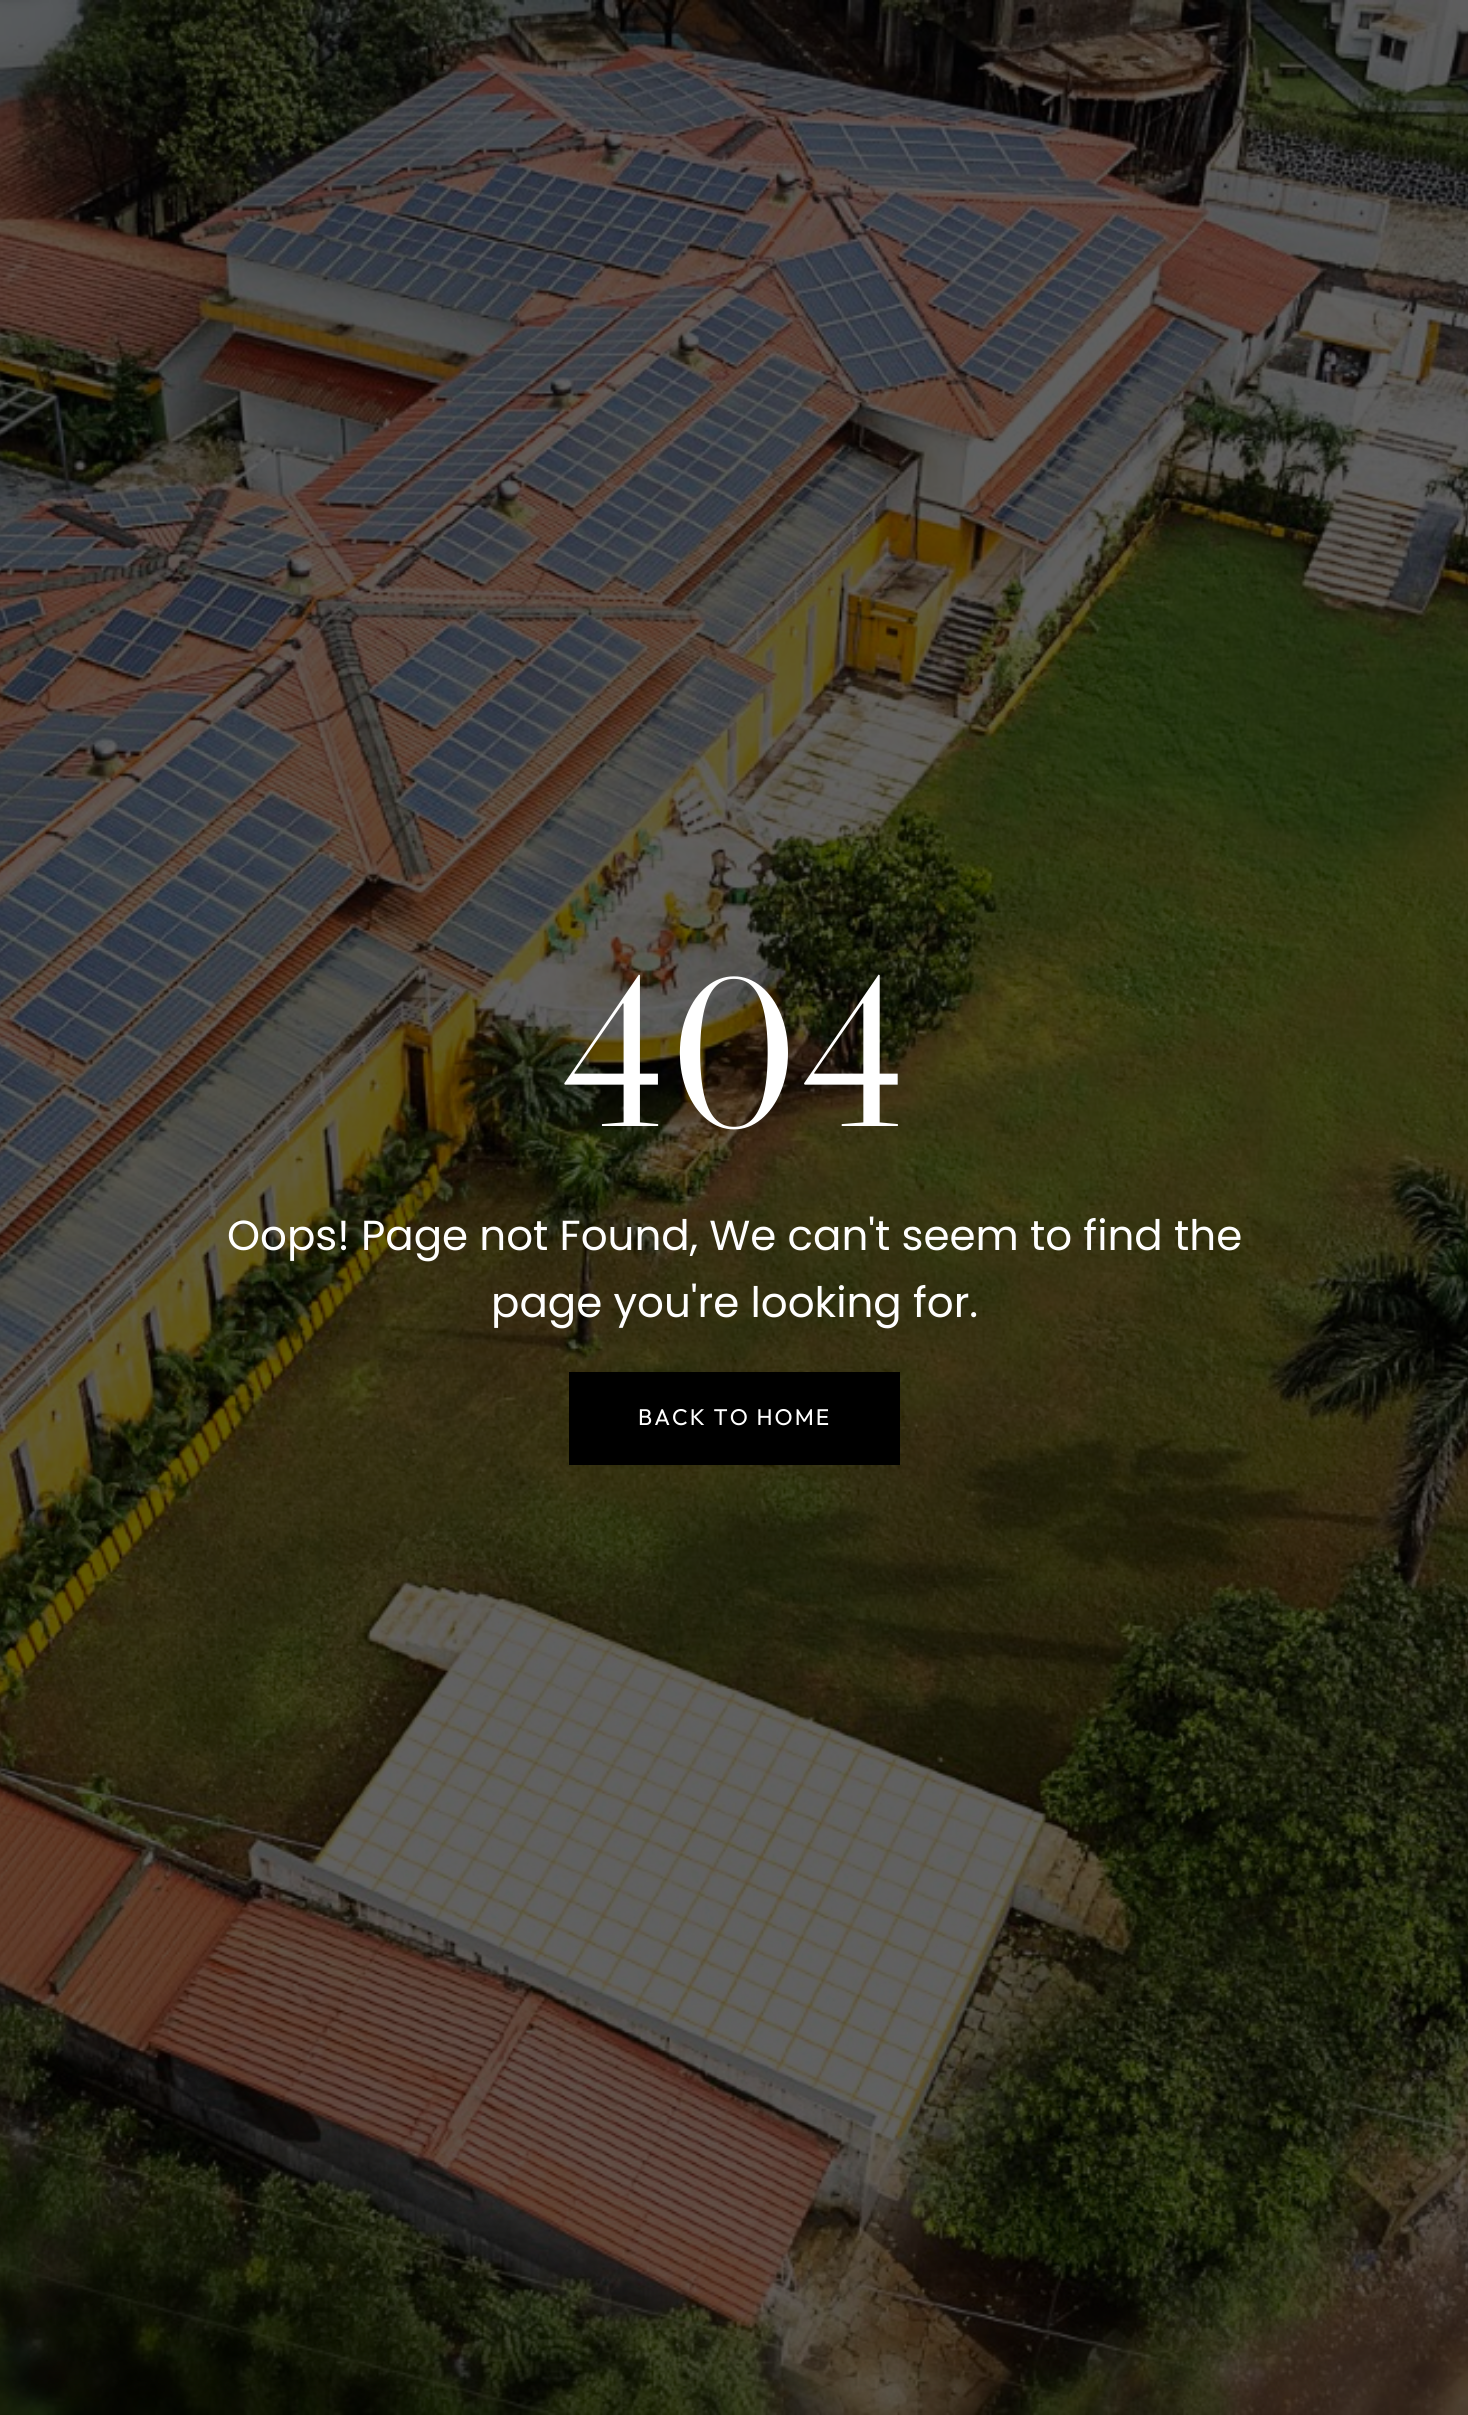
#include <cairo/cairo.h>
#include <math.h>
#include <stddef.h>

static cairo_t *cr;

static void rgb(unsigned color)
{
	cairo_set_source_rgb(cr, (color >> 16) / 255.0, (color >> 8 & 255) / 255.0, (color & 255) / 255.0);
}

static void tracked(double x, double y, const char *s, double letter, double word)
{
	cairo_move_to(cr, x, y);
	while (*s) {
		char ch[5] = {0};
		int n = 0;
		do ch[n++] = *s++; while ((*s & 0xC0) == 0x80);
		cairo_show_text(cr, ch);
		cairo_rel_move_to(cr, letter + word * (*ch == ' '), 0);
	}
}

static void image(const char *path, double x, double y, double w, double h)
{
	cairo_surface_t *image = cairo_image_surface_create_from_png(path);
	cairo_save(cr);
	cairo_set_source_surface(cr, image, x, y);
	cairo_rectangle(cr, x, y, w, h);
	cairo_fill(cr);
	cairo_restore(cr);
	cairo_surface_destroy(image);
}

int main(void) {
	cairo_surface_t *surface = cairo_image_surface_create(CAIRO_FORMAT_RGB24, 1468, 2415);
	cr = cairo_create(surface);
	cairo_font_options_t *options = cairo_font_options_create();
	cairo_font_options_set_hint_metrics(options, CAIRO_HINT_METRICS_OFF);
	cairo_font_options_set_hint_style(options, CAIRO_HINT_STYLE_NONE);
	cairo_set_font_options(cr, options);
	cairo_set_miter_limit(cr, 4);
	rgb(0xffffff);
	cairo_paint(cr);
	image("img/1.png", 0, 0, 1468, 2415);
	rgb(0x000000);
	cairo_rectangle(cr, 569, 1372, 331, 93);
	cairo_fill(cr);
	cairo_select_font_face(cr, "Libre Caslon Display", CAIRO_FONT_SLANT_NORMAL, CAIRO_FONT_WEIGHT_NORMAL);
	cairo_set_font_size(cr, 212);
	rgb(0xffffff);
	cairo_move_to(cr, 560, 1126);
	cairo_show_text(cr, "404");
	cairo_select_font_face(cr, "Poppins", CAIRO_FONT_SLANT_NORMAL, CAIRO_FONT_WEIGHT_NORMAL);
	cairo_set_font_size(cr, 42);
	cairo_move_to(cr, 227, 1250);
	cairo_show_text(cr, "Oops! Page not Found, We can't seem to find the");
	cairo_move_to(cr, 491, 1317);
	cairo_show_text(cr, "page you're looking for.");
	cairo_select_font_face(cr, "Outfit", CAIRO_FONT_SLANT_NORMAL, CAIRO_FONT_WEIGHT_NORMAL);
	cairo_set_font_size(cr, 22.75);
	tracked(638, 1425, "BACK TO HOME", 2, 0);
	cairo_surface_write_to_png(surface, "page.png");
	cairo_font_options_destroy(options);
	cairo_destroy(cr);
	cairo_surface_destroy(surface);
	return 0;
}
